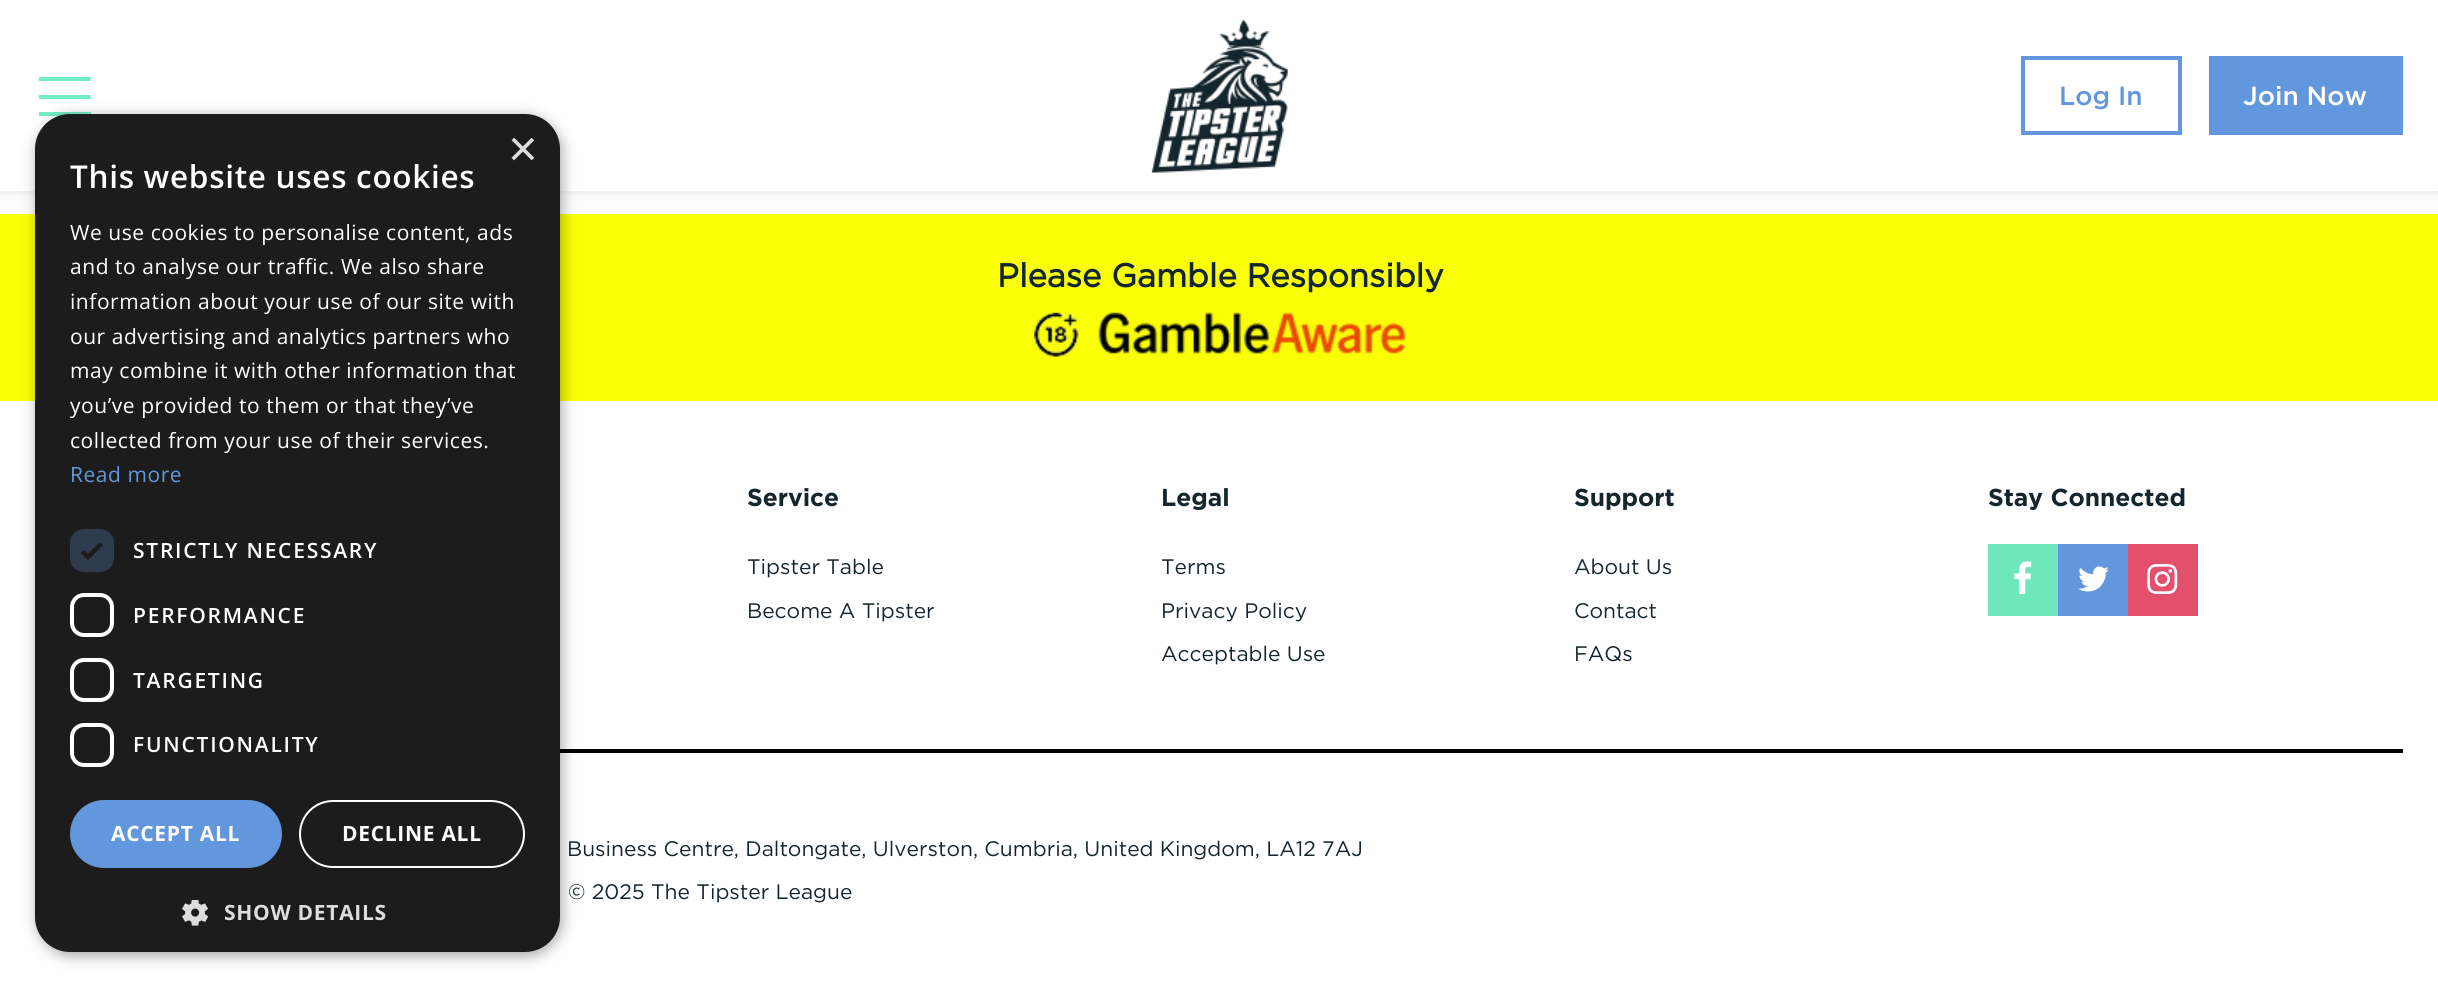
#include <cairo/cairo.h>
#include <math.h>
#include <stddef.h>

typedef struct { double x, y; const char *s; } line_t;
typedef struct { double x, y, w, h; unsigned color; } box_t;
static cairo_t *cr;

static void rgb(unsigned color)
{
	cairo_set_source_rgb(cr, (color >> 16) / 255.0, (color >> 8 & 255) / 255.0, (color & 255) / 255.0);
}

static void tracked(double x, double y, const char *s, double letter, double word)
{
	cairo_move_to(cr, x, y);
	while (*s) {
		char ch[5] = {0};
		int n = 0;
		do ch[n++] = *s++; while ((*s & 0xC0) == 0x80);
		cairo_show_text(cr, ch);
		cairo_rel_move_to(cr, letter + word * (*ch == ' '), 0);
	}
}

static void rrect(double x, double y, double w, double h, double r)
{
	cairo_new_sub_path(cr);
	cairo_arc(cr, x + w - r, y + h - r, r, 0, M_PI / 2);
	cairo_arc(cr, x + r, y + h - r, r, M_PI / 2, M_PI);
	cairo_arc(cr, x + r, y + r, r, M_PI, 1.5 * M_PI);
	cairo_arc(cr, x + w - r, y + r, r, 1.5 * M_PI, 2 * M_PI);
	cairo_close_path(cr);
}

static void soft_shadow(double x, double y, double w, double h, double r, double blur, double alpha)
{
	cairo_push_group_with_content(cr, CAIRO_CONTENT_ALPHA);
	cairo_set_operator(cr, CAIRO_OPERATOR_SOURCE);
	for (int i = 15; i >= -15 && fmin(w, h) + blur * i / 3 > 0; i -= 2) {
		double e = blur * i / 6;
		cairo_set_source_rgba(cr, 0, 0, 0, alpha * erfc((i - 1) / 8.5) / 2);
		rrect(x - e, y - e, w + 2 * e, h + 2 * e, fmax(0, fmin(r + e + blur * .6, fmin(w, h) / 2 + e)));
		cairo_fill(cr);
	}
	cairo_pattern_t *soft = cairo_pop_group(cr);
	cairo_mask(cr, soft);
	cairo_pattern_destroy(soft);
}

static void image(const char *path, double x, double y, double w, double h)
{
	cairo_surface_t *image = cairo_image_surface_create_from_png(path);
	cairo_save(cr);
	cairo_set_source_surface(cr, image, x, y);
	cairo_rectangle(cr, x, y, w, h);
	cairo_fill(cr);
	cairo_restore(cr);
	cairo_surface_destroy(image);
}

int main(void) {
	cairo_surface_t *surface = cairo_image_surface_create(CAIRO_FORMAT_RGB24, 2438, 987);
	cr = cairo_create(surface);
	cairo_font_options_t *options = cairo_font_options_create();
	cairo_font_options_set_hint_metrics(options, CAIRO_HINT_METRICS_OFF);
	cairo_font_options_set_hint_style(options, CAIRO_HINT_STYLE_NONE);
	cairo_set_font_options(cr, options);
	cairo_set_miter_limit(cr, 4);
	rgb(0xfcfcfc);
	cairo_paint(cr);
	rgb(0x000000);
	soft_shadow(0, 4, 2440, 190, 0, 2, 0.05);
	rgb(0xffffff);
	cairo_rectangle(cr, 0, 0, 2438, 191);
	cairo_fill(cr);
	image("img/1.png", 1151, 19, 137, 154);
	{
		static const box_t items[] = {
			{39, 77, 52, 4, 0x73eec3},
			{39, 95, 52, 4, 0x73eec3},
			{39, 112, 52, 4, 0x73eec3},
		};
		for (size_t i = 0; i < sizeof items / sizeof *items; i++) {
			rgb(items[i].color);
			cairo_rectangle(cr, items[i].x, items[i].y, items[i].w, items[i].h);
			cairo_fill(cr);
		}
	}
	cairo_rectangle(cr, 2023, 58, 157, 75);
	rgb(0x6397dd);
	cairo_set_line_width(cr, 4);
	cairo_stroke(cr);
	{
		static const box_t items[] = {
			{2209, 56, 194, 79, 0x6397dd},
			{0, 401, 2438, 586, 0xffffff},
			{0, 214, 2438, 187, 0xfaff07},
			{560, 749, 1843, 4, 0x000000},
		};
		for (size_t i = 0; i < sizeof items / sizeof *items; i++) {
			rgb(items[i].color);
			cairo_rectangle(cr, items[i].x, items[i].y, items[i].w, items[i].h);
			cairo_fill(cr);
		}
	}
	rgb(0x000000);
	soft_shadow(37, 117, 525, 839, 35, 7, 0.35);
	rgb(0x1c1c1c);
	rrect(35, 114, 525, 838, 35);
	cairo_fill(cr);
	rgb(0x2e3c4e);
	rrect(70, 529, 44, 43, 14);
	cairo_fill(cr);
	cairo_new_path(cr);
	cairo_move_to(cr, 82, 551.5);
	cairo_line_to(cr, 88, 557);
	cairo_line_to(cr, 101.5, 543.5);
	rgb(0x1c1c1c);
	cairo_set_line_width(cr, 4.6);
	cairo_stroke(cr);
	rrect(72, 595, 40, 40, 12);
	rgb(0xffffff);
	cairo_set_line_width(cr, 4);
	cairo_stroke(cr);
	rrect(72, 660, 40, 40, 12);
	cairo_stroke(cr);
	rrect(72, 725, 40, 40, 12);
	cairo_stroke(cr);
	rgb(0x6397dd);
	rrect(70, 800, 212, 68, 34);
	cairo_fill(cr);
	rrect(300, 801, 224, 66, 33);
	rgb(0xffffff);
	cairo_set_line_width(cr, 2);
	cairo_stroke(cr);
	image("img/2.png", 182, 900, 26, 26);
	image("img/3.png", 1034, 312, 372, 45);
	rgb(0x6ee7bc);
	cairo_rectangle(cr, 1988, 544, 70, 72);
	cairo_fill(cr);
	image("img/4.png", 2014, 561, 18, 33);
	rgb(0x6397dd);
	cairo_rectangle(cr, 2058, 544, 70, 72);
	cairo_fill(cr);
	image("img/5.png", 2078, 566, 31, 26);
	rgb(0xe2506b);
	cairo_rectangle(cr, 2128, 544, 70, 72);
	cairo_fill(cr);
	image("img/6.png", 2147, 564, 31, 30);
	cairo_select_font_face(cr, "Gotham Medium", CAIRO_FONT_SLANT_NORMAL, CAIRO_FONT_WEIGHT_NORMAL);
	cairo_set_font_size(cr, 26.25);
	rgb(0x6397dd);
	cairo_move_to(cr, 2059, 105);
	cairo_show_text(cr, "Log In");
	rgb(0xffffff);
	cairo_move_to(cr, 2243, 105);
	cairo_show_text(cr, "Join Now");
	cairo_select_font_face(cr, "Liberation Sans", CAIRO_FONT_SLANT_NORMAL, CAIRO_FONT_WEIGHT_NORMAL);
	cairo_set_font_size(cr, 51);
	rgb(0xdddddd);
	cairo_move_to(cr, 508, 166);
	cairo_show_text(cr, "×");
	cairo_select_font_face(cr, "Open Sans SemiBold", CAIRO_FONT_SLANT_NORMAL, CAIRO_FONT_WEIGHT_NORMAL);
	cairo_set_font_size(cr, 31.5);
	rgb(0xffffff);
	tracked(70, 188, "This website uses cookies", 0.7, 0);
	cairo_select_font_face(cr, "Open Sans", CAIRO_FONT_SLANT_NORMAL, CAIRO_FONT_WEIGHT_NORMAL);
	cairo_set_font_size(cr, 21);
	{
		static const line_t items[] = {
			{70, 240, "We use cookies to personalise content, ads"},
			{70, 274, "and to analyse our traffic. We also share"},
			{70, 309, "information about your use of our site with"},
			{70, 344, "our advertising and analytics partners who"},
			{70, 378, "may combine it with other information that"},
			{70, 413, "you’ve provided to them or that they’ve"},
			{70, 448, "collected from your use of their services."},
		};
		for (size_t i = 0; i < sizeof items / sizeof *items; i++) {
			tracked(items[i].x, items[i].y, items[i].s, 0.55, 0);
		}
	}
	rgb(0x6397dd);
	tracked(70, 482, "Read more", 0.55, 0);
	cairo_select_font_face(cr, "Open Sans SemiBold", CAIRO_FONT_SLANT_NORMAL, CAIRO_FONT_WEIGHT_NORMAL);
	rgb(0xffffff);
	{
		static const line_t items[] = {
			{133, 558, "STRICTLY NECESSARY"},
			{133, 623, "PERFORMANCE"},
			{133, 688, "TARGETING"},
			{133, 752, "FUNCTIONALITY"},
		};
		for (size_t i = 0; i < sizeof items / sizeof *items; i++) {
			tracked(items[i].x, items[i].y, items[i].s, 1.75, 0);
		}
	}
	cairo_select_font_face(cr, "Open Sans", CAIRO_FONT_SLANT_NORMAL, CAIRO_FONT_WEIGHT_BOLD);
	tracked(111, 841, "ACCEPT ALL", 0.7, 0);
	tracked(342, 841, "DECLINE ALL", 0.7, 0);
	rgb(0xdddddd);
	tracked(224, 920, "SHOW DETAILS", 0.7, 0);
	cairo_select_font_face(cr, "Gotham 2", CAIRO_FONT_SLANT_NORMAL, CAIRO_FONT_WEIGHT_BOLD);
	cairo_set_font_size(cr, 32.75);
	rgb(0x14252d);
	cairo_move_to(cr, 997, 287);
	cairo_show_text(cr, "Please Gamble Responsibly");
	cairo_select_font_face(cr, "Gotham", CAIRO_FONT_SLANT_NORMAL, CAIRO_FONT_WEIGHT_BOLD);
	cairo_set_font_size(cr, 24.5);
	cairo_move_to(cr, 747, 506);
	cairo_show_text(cr, "Service");
	cairo_select_font_face(cr, "Gotham", CAIRO_FONT_SLANT_NORMAL, CAIRO_FONT_WEIGHT_NORMAL);
	cairo_set_font_size(cr, 21);
	cairo_move_to(cr, 747, 574);
	cairo_show_text(cr, "Tipster Table");
	cairo_move_to(cr, 747, 618);
	cairo_show_text(cr, "Become A Tipster");
	cairo_select_font_face(cr, "Gotham", CAIRO_FONT_SLANT_NORMAL, CAIRO_FONT_WEIGHT_BOLD);
	cairo_set_font_size(cr, 24.5);
	cairo_move_to(cr, 1161, 506);
	cairo_show_text(cr, "Legal");
	cairo_select_font_face(cr, "Gotham", CAIRO_FONT_SLANT_NORMAL, CAIRO_FONT_WEIGHT_NORMAL);
	cairo_set_font_size(cr, 21);
	{
		static const line_t items[] = {
			{1161, 574, "Terms"},
			{1161, 618, "Privacy Policy"},
			{1161, 661, "Acceptable Use"},
		};
		for (size_t i = 0; i < sizeof items / sizeof *items; i++) {
			cairo_move_to(cr, items[i].x, items[i].y);
			cairo_show_text(cr, items[i].s);
		}
	}
	cairo_select_font_face(cr, "Gotham", CAIRO_FONT_SLANT_NORMAL, CAIRO_FONT_WEIGHT_BOLD);
	cairo_set_font_size(cr, 24.5);
	cairo_move_to(cr, 1574, 506);
	cairo_show_text(cr, "Support");
	cairo_select_font_face(cr, "Gotham", CAIRO_FONT_SLANT_NORMAL, CAIRO_FONT_WEIGHT_NORMAL);
	cairo_set_font_size(cr, 21);
	{
		static const line_t items[] = {
			{1574, 574, "About Us"},
			{1574, 618, "Contact"},
			{1574, 661, "FAQs"},
		};
		for (size_t i = 0; i < sizeof items / sizeof *items; i++) {
			cairo_move_to(cr, items[i].x, items[i].y);
			cairo_show_text(cr, items[i].s);
		}
	}
	cairo_select_font_face(cr, "Gotham", CAIRO_FONT_SLANT_NORMAL, CAIRO_FONT_WEIGHT_BOLD);
	cairo_set_font_size(cr, 24.5);
	cairo_move_to(cr, 1988, 506);
	cairo_show_text(cr, "Stay Connected");
	cairo_select_font_face(cr, "Gotham", CAIRO_FONT_SLANT_NORMAL, CAIRO_FONT_WEIGHT_NORMAL);
	cairo_set_font_size(cr, 21);
	cairo_move_to(cr, 567, 856);
	cairo_show_text(cr, "Business Centre, Daltongate, Ulverston, Cumbria, United Kingdom, LA12 7AJ");
	cairo_move_to(cr, 568, 899);
	cairo_show_text(cr, "© 2025 The Tipster League");
	cairo_surface_write_to_png(surface, "page.png");
	cairo_font_options_destroy(options);
	cairo_destroy(cr);
	cairo_surface_destroy(surface);
	return 0;
}
